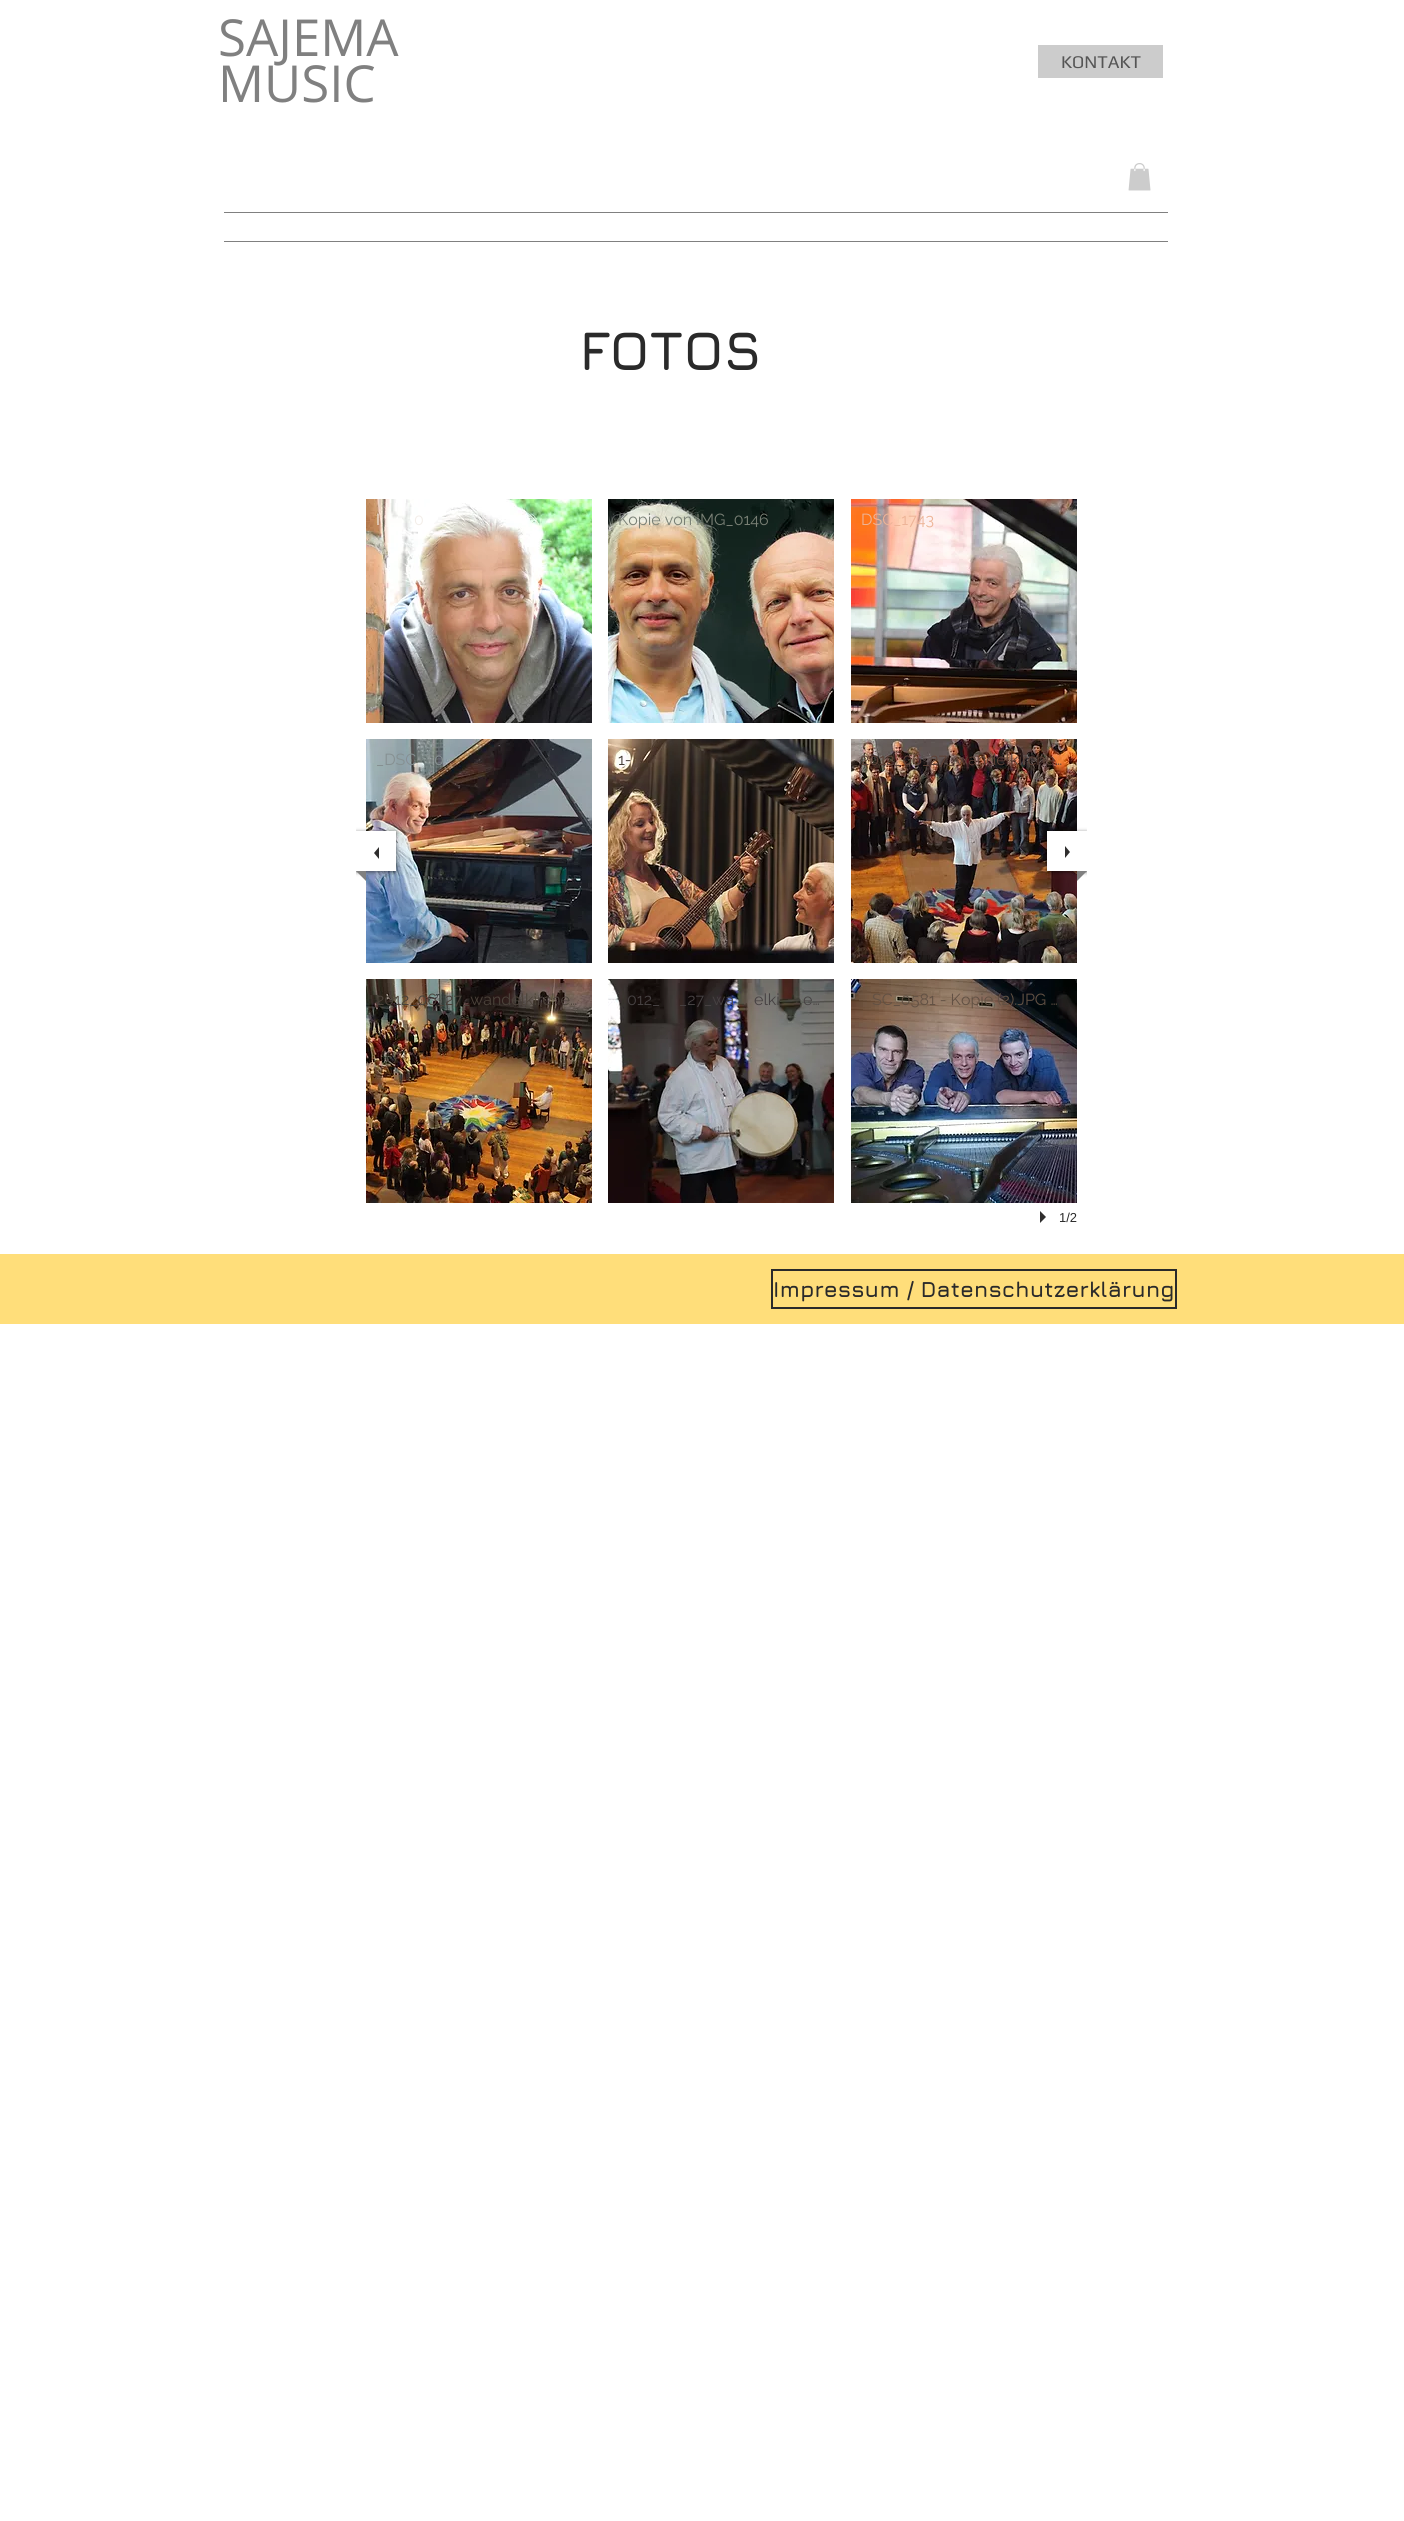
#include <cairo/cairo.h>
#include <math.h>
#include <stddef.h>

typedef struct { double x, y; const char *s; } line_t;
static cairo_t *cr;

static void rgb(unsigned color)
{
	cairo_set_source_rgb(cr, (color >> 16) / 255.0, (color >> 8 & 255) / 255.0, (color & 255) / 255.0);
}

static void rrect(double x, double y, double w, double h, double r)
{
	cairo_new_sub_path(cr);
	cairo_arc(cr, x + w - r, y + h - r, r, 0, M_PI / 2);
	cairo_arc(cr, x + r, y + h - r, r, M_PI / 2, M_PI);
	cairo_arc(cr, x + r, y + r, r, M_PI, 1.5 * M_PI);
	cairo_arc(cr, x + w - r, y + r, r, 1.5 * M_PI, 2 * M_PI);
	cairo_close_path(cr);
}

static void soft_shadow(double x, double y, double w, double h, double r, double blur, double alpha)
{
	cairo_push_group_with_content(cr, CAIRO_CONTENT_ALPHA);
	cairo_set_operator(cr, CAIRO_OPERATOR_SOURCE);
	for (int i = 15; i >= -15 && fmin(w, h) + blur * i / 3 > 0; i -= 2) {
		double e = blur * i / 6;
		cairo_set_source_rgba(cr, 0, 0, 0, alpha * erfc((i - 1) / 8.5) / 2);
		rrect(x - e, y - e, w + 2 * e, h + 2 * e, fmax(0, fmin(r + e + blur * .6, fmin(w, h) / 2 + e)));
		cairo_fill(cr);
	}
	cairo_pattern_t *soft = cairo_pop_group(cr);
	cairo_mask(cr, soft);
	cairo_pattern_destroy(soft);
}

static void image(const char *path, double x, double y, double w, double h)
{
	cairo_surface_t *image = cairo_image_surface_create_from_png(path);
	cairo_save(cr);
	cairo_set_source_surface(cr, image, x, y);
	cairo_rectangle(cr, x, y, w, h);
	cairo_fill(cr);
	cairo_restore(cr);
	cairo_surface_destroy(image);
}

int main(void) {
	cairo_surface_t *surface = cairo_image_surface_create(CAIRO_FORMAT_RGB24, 1404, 2521);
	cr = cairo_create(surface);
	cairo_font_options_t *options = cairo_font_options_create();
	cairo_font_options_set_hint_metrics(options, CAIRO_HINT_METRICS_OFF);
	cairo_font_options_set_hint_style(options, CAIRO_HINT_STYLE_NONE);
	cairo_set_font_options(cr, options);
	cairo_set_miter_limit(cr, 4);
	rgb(0xffffff);
	cairo_paint(cr);
	rgb(0xcccccc);
	cairo_rectangle(cr, 1038, 45, 125, 33);
	cairo_fill(cr);
	image("img/1.png", 1128, 163, 23, 28);
	rgb(0x808080);
	cairo_rectangle(cr, 224, 212, 944, 1);
	cairo_fill(cr);
	cairo_rectangle(cr, 224, 241, 944, 1);
	cairo_fill(cr);
	image("img/2.png", 366, 499, 226, 224);
	image("img/3.png", 608, 499, 226, 224);
	image("img/4.png", 851, 499, 226, 224);
	image("img/5.png", 366, 739, 226, 224);
	image("img/6.png", 608, 739, 226, 224);
	image("img/7.png", 851, 739, 226, 224);
	image("img/8.png", 366, 979, 226, 224);
	image("img/9.png", 608, 979, 226, 224);
	image("img/10.png", 851, 979, 226, 224);
	cairo_save(cr);
	cairo_rectangle(cr, 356, 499, 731, 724);
	cairo_clip(cr);
	rgb(0x000000);
	soft_shadow(356, 832, 40, 40, 0, 2, 0.6);
	cairo_restore(cr);
	rgb(0xffffff);
	cairo_rectangle(cr, 356, 831, 40, 40);
	cairo_fill(cr);
	rgb(0x2f2e2e);
	cairo_new_path(cr);
	cairo_move_to(cr, 379, 847);
	cairo_line_to(cr, 379, 859);
	cairo_line_to(cr, 374, 853);
	cairo_close_path(cr);
	cairo_fill(cr);
	rgb(0x808080);
	cairo_new_path(cr);
	cairo_move_to(cr, 366, 871);
	cairo_line_to(cr, 366, 881);
	cairo_line_to(cr, 356, 871);
	cairo_close_path(cr);
	cairo_fill(cr);
	cairo_save(cr);
	cairo_rectangle(cr, 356, 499, 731, 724);
	cairo_clip(cr);
	rgb(0x000000);
	soft_shadow(1047, 832, 40, 40, 0, 2, 0.6);
	cairo_restore(cr);
	rgb(0xffffff);
	cairo_rectangle(cr, 1047, 831, 40, 40);
	cairo_fill(cr);
	rgb(0x2f2e2e);
	cairo_new_path(cr);
	cairo_move_to(cr, 1065, 858);
	cairo_line_to(cr, 1065, 846);
	cairo_line_to(cr, 1070, 852);
	cairo_close_path(cr);
	cairo_fill(cr);
	rgb(0x808080);
	cairo_new_path(cr);
	cairo_move_to(cr, 1077, 881);
	cairo_line_to(cr, 1077, 871);
	cairo_line_to(cr, 1087, 871);
	cairo_close_path(cr);
	cairo_fill(cr);
	rgb(0x2f2e2e);
	cairo_new_path(cr);
	cairo_move_to(cr, 1040, 1223);
	cairo_line_to(cr, 1040, 1211);
	cairo_line_to(cr, 1046, 1217);
	cairo_close_path(cr);
	cairo_fill(cr);
	rgb(0xffde7a);
	cairo_rectangle(cr, 0, 1254, 1404, 70);
	cairo_fill(cr);
	cairo_rectangle(cr, 772, 1270, 404, 38);
	rgb(0x2a2a2a);
	cairo_stroke(cr);
	cairo_select_font_face(cr, "Open Sans", CAIRO_FONT_SLANT_NORMAL, CAIRO_FONT_WEIGHT_NORMAL);
	cairo_set_font_size(cr, 51);
	rgb(0x808080);
	cairo_move_to(cr, 218, 56);
	cairo_show_text(cr, "SAJEMA");
	cairo_move_to(cr, 218, 102);
	cairo_show_text(cr, "MUSIC");
	cairo_select_font_face(cr, "Play", CAIRO_FONT_SLANT_NORMAL, CAIRO_FONT_WEIGHT_NORMAL);
	cairo_set_font_size(cr, 18);
	rgb(0x555555);
	cairo_move_to(cr, 1061, 68);
	cairo_show_text(cr, "KONTAKT");
	cairo_select_font_face(cr, "Jura", CAIRO_FONT_SLANT_NORMAL, CAIRO_FONT_WEIGHT_BOLD);
	cairo_set_font_size(cr, 55);
	rgb(0x2a2a2a);
	cairo_move_to(cr, 579, 370);
	cairo_show_text(cr, "FOTOS");
	cairo_select_font_face(cr, "Raleway", CAIRO_FONT_SLANT_NORMAL, CAIRO_FONT_WEIGHT_NORMAL);
	cairo_set_font_size(cr, 16);
	rgb(0xf3eee9);
	cairo_move_to(cr, 376, 525);
	cairo_show_text(cr, "I");
	cairo_move_to(cr, 414, 525);
	cairo_show_text(cr, "0");
	rgb(0x798075);
	cairo_move_to(cr, 618, 525);
	cairo_show_text(cr, "Kopie von IMG_0146");
	rgb(0xedb497);
	cairo_move_to(cr, 861, 525);
	cairo_show_text(cr, "DSC_1743");
	rgb(0x869092);
	cairo_move_to(cr, 376, 765);
	cairo_show_text(cr, "_DSC");
	cairo_move_to(cr, 434, 765);
	cairo_show_text(cr, "0");
	rgb(0x443b35);
	cairo_move_to(cr, 618, 765);
	cairo_show_text(cr, "1-");
	cairo_move_to(cr, 719, 765);
	cairo_show_text(cr, "-");
	rgb(0x5d4238);
	cairo_move_to(cr, 861, 765);
	cairo_show_text(cr, "2012_06_27_wandelkirche…");
	rgb(0x4b423a);
	cairo_move_to(cr, 376, 1005);
	cairo_show_text(cr, "2012_06_27_wandelkirche…");
	rgb(0x464142);
	{
		static const line_t items[] = {
			{627, 1005, "012_"},
			{679, 1005, "_27_wa"},
			{754, 1005, "elki"},
			{803, 1005, "e…"},
		};
		for (size_t i = 0; i < sizeof items / sizeof *items; i++) {
			cairo_move_to(cr, items[i].x, items[i].y);
			cairo_show_text(cr, items[i].s);
		}
	}
	rgb(0x625144);
	cairo_move_to(cr, 872, 1005);
	cairo_show_text(cr, "SC_0581 - Kopie (2).JPG …");
	cairo_select_font_face(cr, "Liberation Sans", CAIRO_FONT_SLANT_NORMAL, CAIRO_FONT_WEIGHT_NORMAL);
	cairo_set_font_size(cr, 13);
	rgb(0x2a2a2a);
	cairo_move_to(cr, 1059, 1222);
	cairo_show_text(cr, "1/2");
	cairo_select_font_face(cr, "Jura", CAIRO_FONT_SLANT_NORMAL, CAIRO_FONT_WEIGHT_BOLD);
	cairo_set_font_size(cr, 22);
	cairo_move_to(cr, 773, 1297);
	cairo_show_text(cr, "Impressum / Datenschutzerklärung");
	cairo_surface_write_to_png(surface, "page.png");
	cairo_font_options_destroy(options);
	cairo_destroy(cr);
	cairo_surface_destroy(surface);
	return 0;
}
